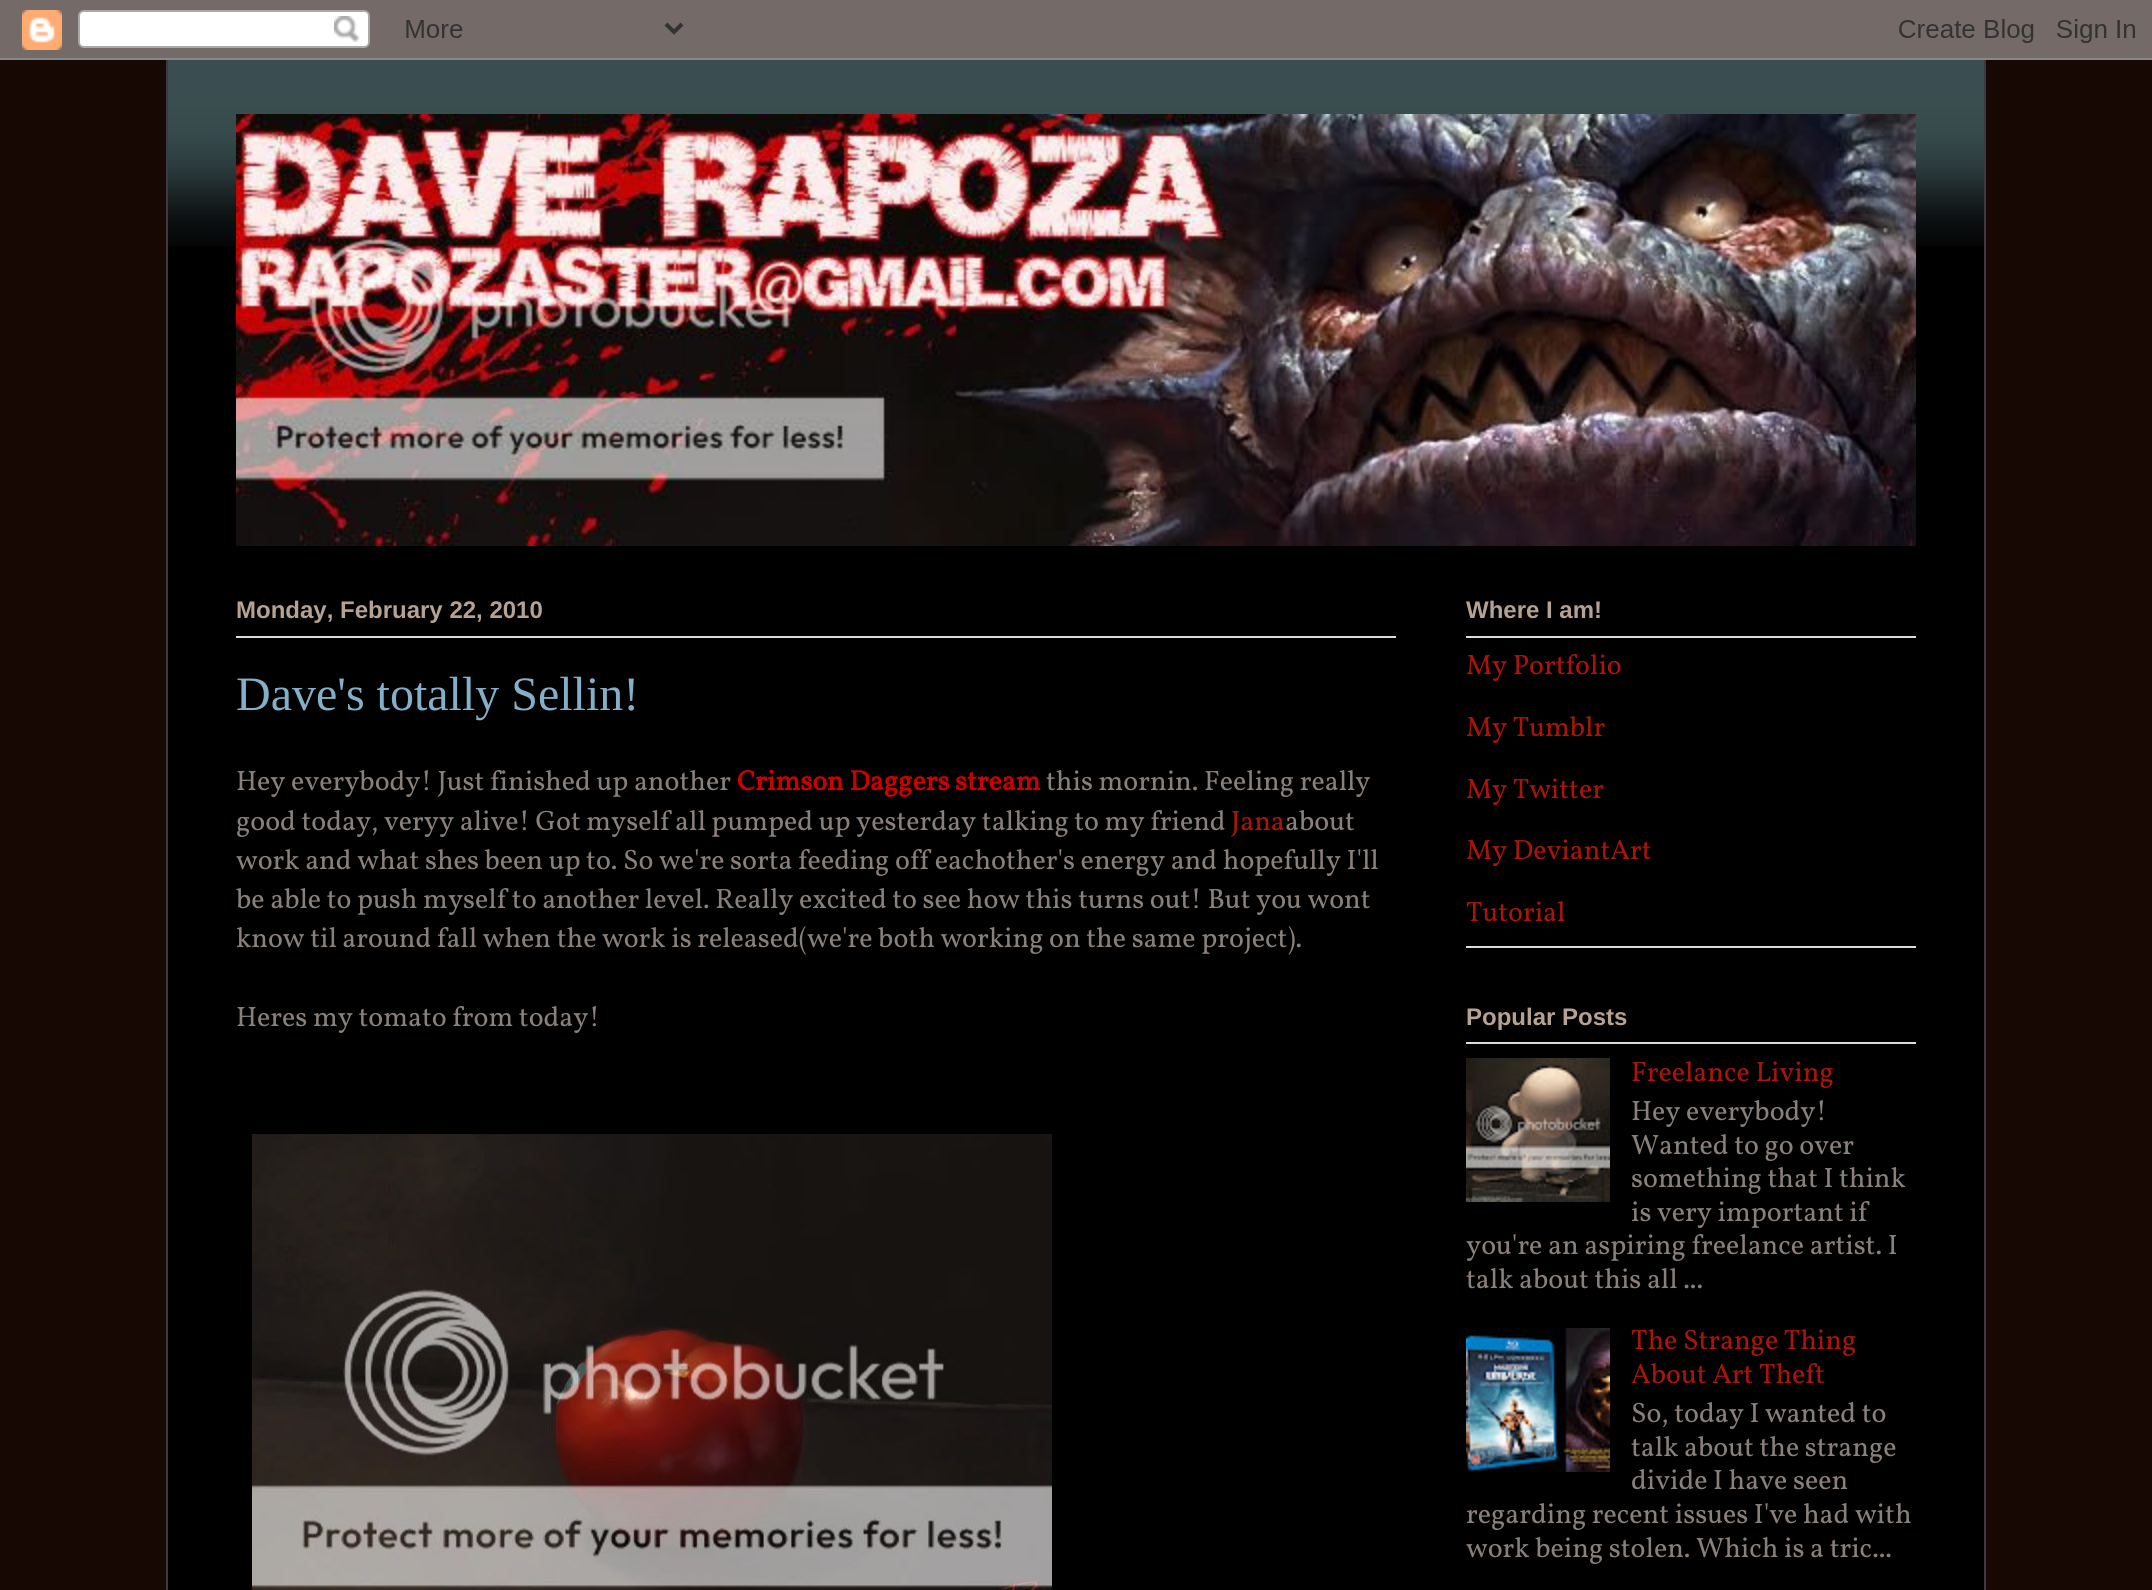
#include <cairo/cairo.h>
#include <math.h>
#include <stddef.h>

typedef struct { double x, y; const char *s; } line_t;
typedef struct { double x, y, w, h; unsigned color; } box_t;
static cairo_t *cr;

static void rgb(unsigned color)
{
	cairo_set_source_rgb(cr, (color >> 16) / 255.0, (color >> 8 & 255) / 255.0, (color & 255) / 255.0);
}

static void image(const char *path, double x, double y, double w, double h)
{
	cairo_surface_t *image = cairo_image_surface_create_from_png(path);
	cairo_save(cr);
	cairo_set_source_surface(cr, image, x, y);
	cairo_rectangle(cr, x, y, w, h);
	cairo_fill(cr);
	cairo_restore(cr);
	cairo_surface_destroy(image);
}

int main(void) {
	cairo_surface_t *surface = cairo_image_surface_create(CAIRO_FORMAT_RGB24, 2152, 1590);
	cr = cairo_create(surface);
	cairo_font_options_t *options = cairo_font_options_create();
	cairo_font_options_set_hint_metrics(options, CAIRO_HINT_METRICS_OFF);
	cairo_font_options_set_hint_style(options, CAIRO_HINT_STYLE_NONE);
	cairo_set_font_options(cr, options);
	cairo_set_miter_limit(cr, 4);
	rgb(0x170803);
	cairo_paint(cr);
	image("img/1.png", 0, 0, 2152, 60);
	rgb(0x000000);
	cairo_rectangle(cr, 168, 60, 1816, 1530);
	cairo_fill(cr);
	image("img/2.png", 168, 60, 1816, 186);
	rgb(0x3b3a3a);
	cairo_rectangle(cr, 1984, 60, 2, 1530);
	cairo_fill(cr);
	cairo_rectangle(cr, 166, 60, 2, 1530);
	cairo_fill(cr);
	image("img/3.png", 236, 114, 1680, 432);
	rgb(0xdbdbdb);
	cairo_rectangle(cr, 236, 636, 1160, 2);
	cairo_fill(cr);
	image("img/4.png", 252, 1134, 800, 456);
	{
		static const box_t items[] = {
			{1466, 946, 450, 2, 0xdbdbdb},
			{1466, 636, 450, 2, 0xdbdbdb},
			{1466, 1042, 450, 2, 0xdbdbdb},
		};
		for (size_t i = 0; i < sizeof items / sizeof *items; i++) {
			rgb(items[i].color);
			cairo_rectangle(cr, items[i].x, items[i].y, items[i].w, items[i].h);
			cairo_fill(cr);
		}
	}
	image("img/5.png", 1466, 1058, 144, 144);
	image("img/6.png", 1466, 1328, 144, 144);
	cairo_select_font_face(cr, "Liberation Sans", CAIRO_FONT_SLANT_NORMAL, CAIRO_FONT_WEIGHT_BOLD);
	cairo_set_font_size(cr, 24);
	rgb(0xb6a293);
	cairo_move_to(cr, 236, 618);
	cairo_show_text(cr, "Monday, February 22, 2010");
	cairo_select_font_face(cr, "Liberation Serif", CAIRO_FONT_SLANT_NORMAL, CAIRO_FONT_WEIGHT_NORMAL);
	cairo_set_font_size(cr, 48);
	rgb(0x83b0c9);
	cairo_move_to(cr, 236, 710);
	cairo_show_text(cr, "Dave's totally Sellin!");
	cairo_select_font_face(cr, "Vollkorn", CAIRO_FONT_SLANT_NORMAL, CAIRO_FONT_WEIGHT_NORMAL);
	cairo_set_font_size(cr, 28);
	rgb(0x8a807b);
	cairo_move_to(cr, 236, 790);
	cairo_show_text(cr, "Hey everybody! Just finished up another");
	cairo_select_font_face(cr, "Vollkorn", CAIRO_FONT_SLANT_NORMAL, CAIRO_FONT_WEIGHT_BOLD);
	rgb(0xcc0000);
	cairo_move_to(cr, 737, 790);
	cairo_show_text(cr, "Crimson Daggers stream");
	cairo_select_font_face(cr, "Vollkorn", CAIRO_FONT_SLANT_NORMAL, CAIRO_FONT_WEIGHT_NORMAL);
	rgb(0x8a807b);
	cairo_move_to(cr, 1046, 790);
	cairo_show_text(cr, "this mornin. Feeling really");
	cairo_move_to(cr, 236, 830);
	cairo_show_text(cr, "good today, veryy alive! Got myself all pumped up yesterday talking to my friend");
	rgb(0xac140a);
	cairo_move_to(cr, 1231, 830);
	cairo_show_text(cr, "Jana");
	rgb(0x8a807b);
	{
		static const line_t items[] = {
			{1285, 830, "about"},
			{236, 869, "work and what shes been up to. So we're sorta feeding off eachother's energy and hopefully I'll"},
			{236, 908, "be able to push myself to another level. Really excited to see how this turns out! But you wont"},
			{236, 947, "know til around fall when the work is released(we're both working on the same project)."},
			{236, 1026, "Heres my tomato from today!"},
		};
		for (size_t i = 0; i < sizeof items / sizeof *items; i++) {
			cairo_move_to(cr, items[i].x, items[i].y);
			cairo_show_text(cr, items[i].s);
		}
	}
	cairo_select_font_face(cr, "Liberation Sans", CAIRO_FONT_SLANT_NORMAL, CAIRO_FONT_WEIGHT_BOLD);
	cairo_set_font_size(cr, 24);
	rgb(0xb6a293);
	cairo_move_to(cr, 1466, 618);
	cairo_show_text(cr, "Where I am!");
	cairo_select_font_face(cr, "Vollkorn", CAIRO_FONT_SLANT_NORMAL, CAIRO_FONT_WEIGHT_NORMAL);
	cairo_set_font_size(cr, 28);
	rgb(0xac140a);
	{
		static const line_t items[] = {
			{1466, 674, "My Portfolio"},
			{1466, 736, "My Tumblr"},
			{1466, 798, "My Twitter"},
			{1466, 859, "My DeviantArt"},
			{1466, 921, "Tutorial"},
		};
		for (size_t i = 0; i < sizeof items / sizeof *items; i++) {
			cairo_move_to(cr, items[i].x, items[i].y);
			cairo_show_text(cr, items[i].s);
		}
	}
	cairo_select_font_face(cr, "Liberation Sans", CAIRO_FONT_SLANT_NORMAL, CAIRO_FONT_WEIGHT_BOLD);
	cairo_set_font_size(cr, 24);
	rgb(0xb6a293);
	cairo_move_to(cr, 1466, 1025);
	cairo_show_text(cr, "Popular Posts");
	cairo_select_font_face(cr, "Vollkorn", CAIRO_FONT_SLANT_NORMAL, CAIRO_FONT_WEIGHT_NORMAL);
	cairo_set_font_size(cr, 28);
	rgb(0xac140a);
	cairo_move_to(cr, 1631, 1081);
	cairo_show_text(cr, "Freelance Living");
	rgb(0x8a807b);
	{
		static const line_t items[] = {
			{1631, 1120, "Hey everybody!"},
			{1631, 1154, "Wanted to go over"},
			{1631, 1187, "something that I think"},
			{1631, 1221, "is very important if"},
			{1466, 1254, "you're an aspiring freelance artist. I"},
			{1466, 1288, "talk about this all ..."},
		};
		for (size_t i = 0; i < sizeof items / sizeof *items; i++) {
			cairo_move_to(cr, items[i].x, items[i].y);
			cairo_show_text(cr, items[i].s);
		}
	}
	rgb(0xac140a);
	cairo_move_to(cr, 1631, 1349);
	cairo_show_text(cr, "The Strange Thing");
	cairo_move_to(cr, 1631, 1383);
	cairo_show_text(cr, "About Art Theft");
	rgb(0x8a807b);
	{
		static const line_t items[] = {
			{1631, 1422, "So, today I wanted to"},
			{1631, 1456, "talk about the strange"},
			{1631, 1489, "divide I have seen"},
			{1466, 1523, "regarding recent issues I've had with"},
			{1466, 1557, "work being stolen. Which is a tric..."},
		};
		for (size_t i = 0; i < sizeof items / sizeof *items; i++) {
			cairo_move_to(cr, items[i].x, items[i].y);
			cairo_show_text(cr, items[i].s);
		}
	}
	cairo_surface_write_to_png(surface, "page.png");
	cairo_font_options_destroy(options);
	cairo_destroy(cr);
	cairo_surface_destroy(surface);
	return 0;
}
